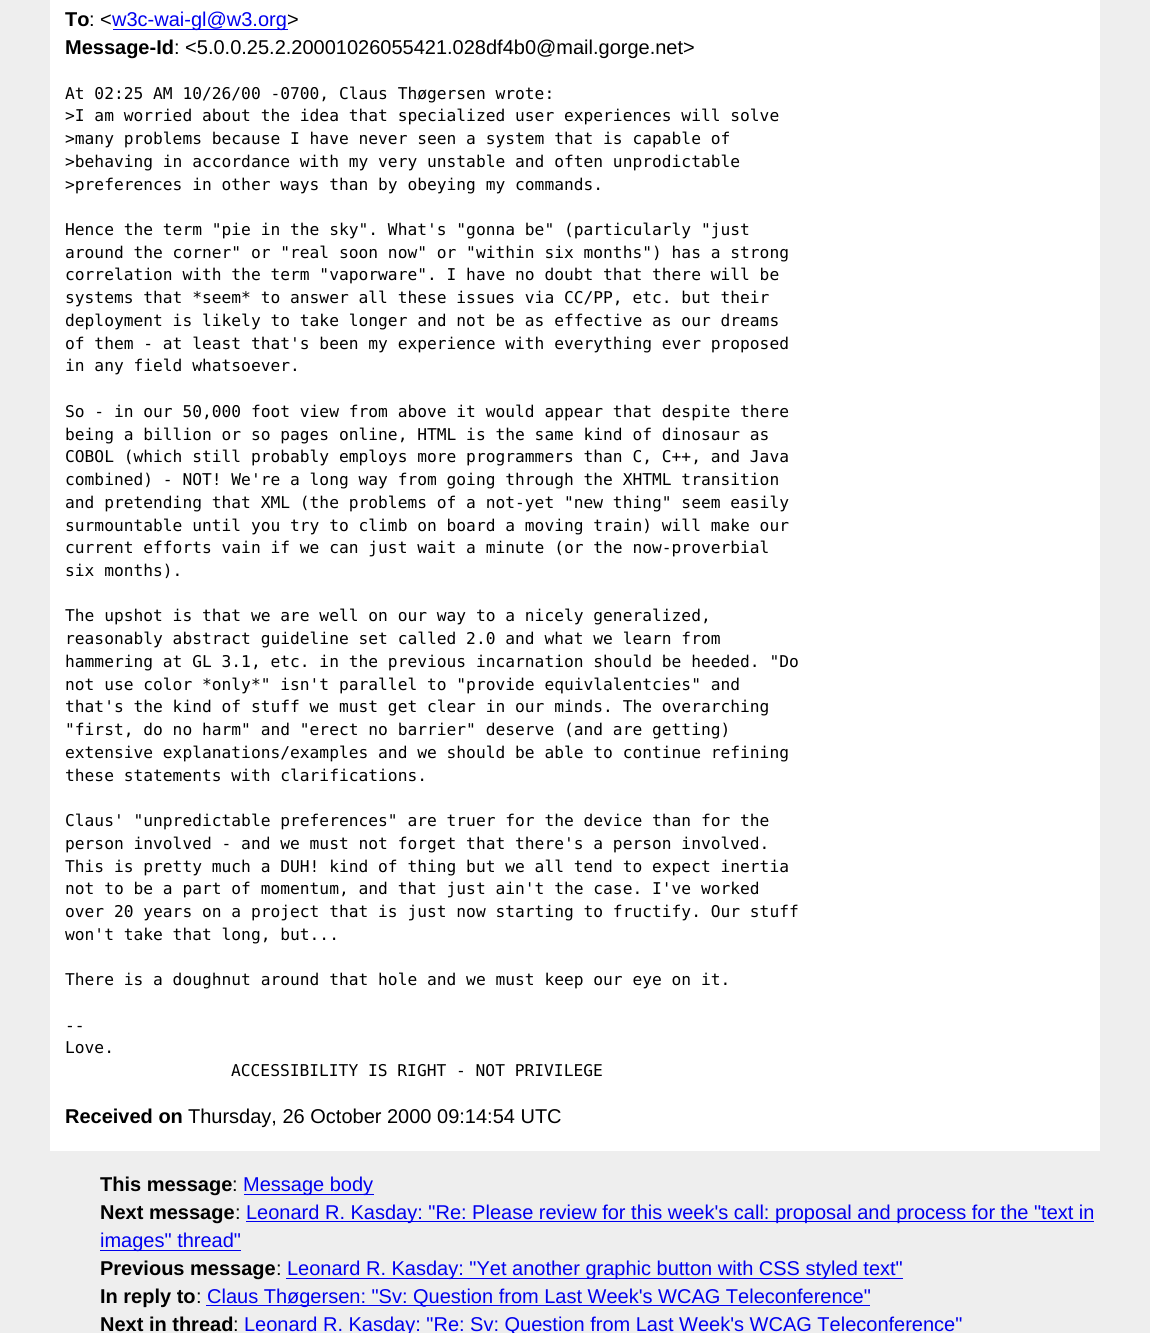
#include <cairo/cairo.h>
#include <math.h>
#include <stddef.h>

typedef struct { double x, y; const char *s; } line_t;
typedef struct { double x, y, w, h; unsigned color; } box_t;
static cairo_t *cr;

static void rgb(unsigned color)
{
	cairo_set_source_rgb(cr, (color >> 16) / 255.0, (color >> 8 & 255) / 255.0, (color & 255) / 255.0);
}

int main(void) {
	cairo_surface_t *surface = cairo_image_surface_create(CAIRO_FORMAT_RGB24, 1150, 1333);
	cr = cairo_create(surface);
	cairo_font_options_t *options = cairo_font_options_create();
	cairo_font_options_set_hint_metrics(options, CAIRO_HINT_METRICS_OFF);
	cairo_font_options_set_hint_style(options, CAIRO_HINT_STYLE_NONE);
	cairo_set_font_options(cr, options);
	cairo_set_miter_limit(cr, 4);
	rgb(0xeeeeee);
	cairo_paint(cr);
	{
		static const box_t items[] = {
			{50, 0, 1050, 1151, 0xffffff},
			{113, 29, 175, 1, 0x0000ee},
			{244, 1194, 130, 1, 0x0000ee},
			{246, 1221, 848, 1, 0x0000ee},
			{100, 1250, 141, 1, 0x0000ee},
			{286, 1278, 617, 1, 0x0000ee},
			{206, 1305, 664, 1, 0x0000ee},
		};
		for (size_t i = 0; i < sizeof items / sizeof *items; i++) {
			rgb(items[i].color);
			cairo_rectangle(cr, items[i].x, items[i].y, items[i].w, items[i].h);
			cairo_fill(cr);
		}
	}
	cairo_select_font_face(cr, "Liberation Sans", CAIRO_FONT_SLANT_NORMAL, CAIRO_FONT_WEIGHT_BOLD);
	cairo_set_font_size(cr, 20);
	rgb(0x000000);
	cairo_move_to(cr, 65, 26);
	cairo_show_text(cr, "To");
	cairo_select_font_face(cr, "Liberation Sans", CAIRO_FONT_SLANT_NORMAL, CAIRO_FONT_WEIGHT_NORMAL);
	cairo_move_to(cr, 89, 26);
	cairo_show_text(cr, ": <");
	rgb(0x0000ee);
	cairo_move_to(cr, 112, 26);
	cairo_show_text(cr, "w3c-wai-gl@w3.org");
	rgb(0x000000);
	cairo_move_to(cr, 287, 26);
	cairo_show_text(cr, ">");
	cairo_select_font_face(cr, "Liberation Sans", CAIRO_FONT_SLANT_NORMAL, CAIRO_FONT_WEIGHT_BOLD);
	cairo_move_to(cr, 65, 54);
	cairo_show_text(cr, "Message-Id");
	cairo_select_font_face(cr, "Liberation Sans", CAIRO_FONT_SLANT_NORMAL, CAIRO_FONT_WEIGHT_NORMAL);
	cairo_move_to(cr, 174, 54);
	cairo_show_text(cr, ": <5.0.0.25.2.20001026055421.028df4b0@mail.gorge.net>");
	cairo_select_font_face(cr, "DejaVu Sans Mono", CAIRO_FONT_SLANT_NORMAL, CAIRO_FONT_WEIGHT_NORMAL);
	cairo_set_font_size(cr, 16.25);
	{
		static const line_t items[] = {
			{65, 99, "At 02:25 AM 10/26/00 -0700, Claus Thøgersen wrote:"},
			{65, 121, ">I am worried about the idea that specialized user experiences will solve"},
			{65, 144, ">many problems because I have never seen a system that is capable of"},
			{65, 167, ">behaving in accordance with my very unstable and often unprodictable"},
			{65, 190, ">preferences in other ways than by obeying my commands."},
			{65, 235, "Hence the term \"pie in the sky\". What's \"gonna be\" (particularly \"just"},
			{65, 258, "around the corner\" or \"real soon now\" or \"within six months\") has a strong"},
			{65, 280, "correlation with the term \"vaporware\". I have no doubt that there will be"},
			{65, 303, "systems that *seem* to answer all these issues via CC/PP, etc. but their"},
			{65, 326, "deployment is likely to take longer and not be as effective as our dreams"},
			{65, 349, "of them - at least that's been my experience with everything ever proposed"},
			{65, 371, "in any field whatsoever."},
			{65, 417, "So - in our 50,000 foot view from above it would appear that despite there"},
			{65, 440, "being a billion or so pages online, HTML is the same kind of dinosaur as"},
			{65, 462, "COBOL (which still probably employs more programmers than C, C++, and Java"},
			{65, 485, "combined) - NOT! We're a long way from going through the XHTML transition"},
			{65, 508, "and pretending that XML (the problems of a not-yet \"new thing\" seem easily"},
			{65, 531, "surmountable until you try to climb on board a moving train) will make our"},
			{65, 553, "current efforts vain if we can just wait a minute (or the now-proverbial"},
			{65, 576, "six months)."},
			{65, 621, "The upshot is that we are well on our way to a nicely generalized,"},
			{65, 644, "reasonably abstract guideline set called 2.0 and what we learn from"},
			{65, 667, "hammering at GL 3.1, etc. in the previous incarnation should be heeded. \"Do"},
			{65, 690, "not use color *only*\" isn't parallel to \"provide equivlalentcies\" and"},
			{65, 712, "that's the kind of stuff we must get clear in our minds. The overarching"},
			{65, 735, "\"first, do no harm\" and \"erect no barrier\" deserve (and are getting)"},
			{65, 758, "extensive explanations/examples and we should be able to continue refining"},
			{65, 781, "these statements with clarifications."},
			{65, 826, "Claus' \"unpredictable preferences\" are truer for the device than for the"},
			{65, 849, "person involved - and we must not forget that there's a person involved."},
			{65, 872, "This is pretty much a DUH! kind of thing but we all tend to expect inertia"},
			{65, 894, "not to be a part of momentum, and that just ain't the case. I've worked"},
			{65, 917, "over 20 years on a project that is just now starting to fructify. Our stuff"},
			{65, 940, "won't take that long, but..."},
			{65, 985, "There is a doughnut around that hole and we must keep our eye on it."},
			{65, 1031, "--"},
			{65, 1053, "Love."},
			{231, 1076, "ACCESSIBILITY IS RIGHT - NOT PRIVILEGE"},
		};
		for (size_t i = 0; i < sizeof items / sizeof *items; i++) {
			cairo_move_to(cr, items[i].x, items[i].y);
			cairo_show_text(cr, items[i].s);
		}
	}
	cairo_select_font_face(cr, "Liberation Sans", CAIRO_FONT_SLANT_NORMAL, CAIRO_FONT_WEIGHT_BOLD);
	cairo_set_font_size(cr, 20);
	cairo_move_to(cr, 65, 1123);
	cairo_show_text(cr, "Received on");
	cairo_select_font_face(cr, "Liberation Sans", CAIRO_FONT_SLANT_NORMAL, CAIRO_FONT_WEIGHT_NORMAL);
	cairo_move_to(cr, 188, 1123);
	cairo_show_text(cr, "Thursday, 26 October 2000 09:14:54 UTC");
	cairo_select_font_face(cr, "Liberation Sans", CAIRO_FONT_SLANT_NORMAL, CAIRO_FONT_WEIGHT_BOLD);
	cairo_move_to(cr, 100, 1191);
	cairo_show_text(cr, "This message");
	cairo_select_font_face(cr, "Liberation Sans", CAIRO_FONT_SLANT_NORMAL, CAIRO_FONT_WEIGHT_NORMAL);
	cairo_move_to(cr, 232, 1191);
	cairo_show_text(cr, ":");
	rgb(0x0000ee);
	cairo_move_to(cr, 243, 1191);
	cairo_show_text(cr, "Message body");
	cairo_select_font_face(cr, "Liberation Sans", CAIRO_FONT_SLANT_NORMAL, CAIRO_FONT_WEIGHT_BOLD);
	rgb(0x000000);
	cairo_move_to(cr, 100, 1219);
	cairo_show_text(cr, "Next message");
	cairo_select_font_face(cr, "Liberation Sans", CAIRO_FONT_SLANT_NORMAL, CAIRO_FONT_WEIGHT_NORMAL);
	cairo_move_to(cr, 235, 1219);
	cairo_show_text(cr, ":");
	rgb(0x0000ee);
	cairo_move_to(cr, 246, 1219);
	cairo_show_text(cr, "Leonard R. Kasday: \"Re: Please review for this week's call: proposal and process for the \"text in");
	cairo_move_to(cr, 100, 1247);
	cairo_show_text(cr, "images\" thread\"");
	cairo_select_font_face(cr, "Liberation Sans", CAIRO_FONT_SLANT_NORMAL, CAIRO_FONT_WEIGHT_BOLD);
	rgb(0x000000);
	cairo_move_to(cr, 100, 1275);
	cairo_show_text(cr, "Previous message");
	cairo_select_font_face(cr, "Liberation Sans", CAIRO_FONT_SLANT_NORMAL, CAIRO_FONT_WEIGHT_NORMAL);
	cairo_move_to(cr, 276, 1275);
	cairo_show_text(cr, ":");
	rgb(0x0000ee);
	cairo_move_to(cr, 287, 1275);
	cairo_show_text(cr, "Leonard R. Kasday: \"Yet another graphic button with CSS styled text\"");
	cairo_select_font_face(cr, "Liberation Sans", CAIRO_FONT_SLANT_NORMAL, CAIRO_FONT_WEIGHT_BOLD);
	rgb(0x000000);
	cairo_move_to(cr, 100, 1303);
	cairo_show_text(cr, "In reply to");
	cairo_select_font_face(cr, "Liberation Sans", CAIRO_FONT_SLANT_NORMAL, CAIRO_FONT_WEIGHT_NORMAL);
	cairo_move_to(cr, 196, 1303);
	cairo_show_text(cr, ":");
	rgb(0x0000ee);
	cairo_move_to(cr, 207, 1303);
	cairo_show_text(cr, "Claus Thøgersen: \"Sv: Question from Last Week's WCAG Teleconference\"");
	cairo_select_font_face(cr, "Liberation Sans", CAIRO_FONT_SLANT_NORMAL, CAIRO_FONT_WEIGHT_BOLD);
	rgb(0x000000);
	cairo_move_to(cr, 100, 1331);
	cairo_show_text(cr, "Next in thread");
	cairo_select_font_face(cr, "Liberation Sans", CAIRO_FONT_SLANT_NORMAL, CAIRO_FONT_WEIGHT_NORMAL);
	cairo_move_to(cr, 233, 1331);
	cairo_show_text(cr, ":");
	rgb(0x0000ee);
	cairo_move_to(cr, 244, 1331);
	cairo_show_text(cr, "Leonard R. Kasday: \"Re: Sv: Question from Last Week's WCAG Teleconference\"");
	cairo_surface_write_to_png(surface, "page.png");
	cairo_font_options_destroy(options);
	cairo_destroy(cr);
	cairo_surface_destroy(surface);
	return 0;
}
